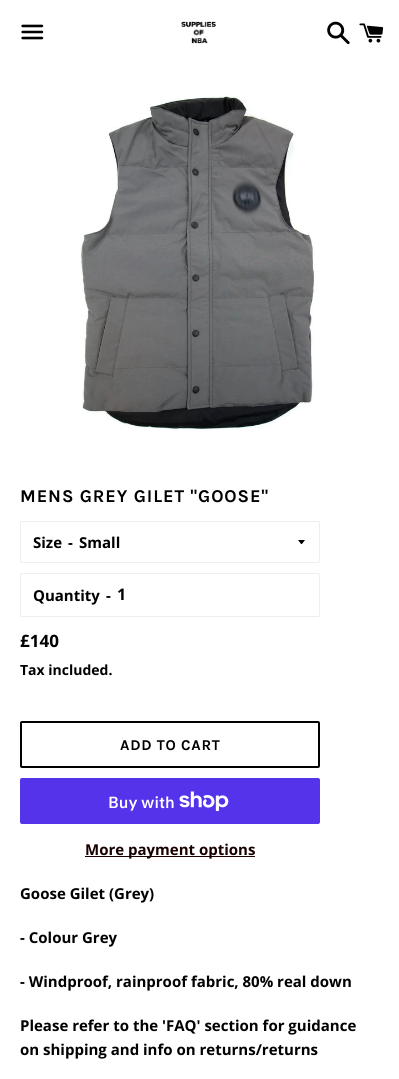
#include <cairo/cairo.h>
#include <math.h>
#include <stddef.h>

typedef struct { double x, y; const char *s; } line_t;
static cairo_t *cr;

static void rgb(unsigned color)
{
	cairo_set_source_rgb(cr, (color >> 16) / 255.0, (color >> 8 & 255) / 255.0, (color & 255) / 255.0);
}

static void tracked(double x, double y, const char *s, double letter, double word)
{
	cairo_move_to(cr, x, y);
	while (*s) {
		char ch[5] = {0};
		int n = 0;
		do ch[n++] = *s++; while ((*s & 0xC0) == 0x80);
		cairo_show_text(cr, ch);
		cairo_rel_move_to(cr, letter + word * (*ch == ' '), 0);
	}
}

static void rrect(double x, double y, double w, double h, double r)
{
	cairo_new_sub_path(cr);
	cairo_arc(cr, x + w - r, y + h - r, r, 0, M_PI / 2);
	cairo_arc(cr, x + r, y + h - r, r, M_PI / 2, M_PI);
	cairo_arc(cr, x + r, y + r, r, M_PI, 1.5 * M_PI);
	cairo_arc(cr, x + w - r, y + r, r, 1.5 * M_PI, 2 * M_PI);
	cairo_close_path(cr);
}

static void image(const char *path, double x, double y, double w, double h)
{
	cairo_surface_t *image = cairo_image_surface_create_from_png(path);
	cairo_save(cr);
	cairo_set_source_surface(cr, image, x, y);
	cairo_rectangle(cr, x, y, w, h);
	cairo_fill(cr);
	cairo_restore(cr);
	cairo_surface_destroy(image);
}

int main(void) {
	cairo_surface_t *surface = cairo_image_surface_create(CAIRO_FORMAT_RGB24, 399, 1079);
	cr = cairo_create(surface);
	cairo_font_options_t *options = cairo_font_options_create();
	cairo_font_options_set_hint_metrics(options, CAIRO_HINT_METRICS_OFF);
	cairo_font_options_set_hint_style(options, CAIRO_HINT_STYLE_NONE);
	cairo_set_font_options(cr, options);
	cairo_set_miter_limit(cr, 4);
	rgb(0xffffff);
	cairo_paint(cr);
	image("img/1.png", 21, 24, 23, 16);
	image("img/2.png", 181, 21, 35, 23);
	image("img/3.png", 327, 21, 23, 24);
	image("img/4.png", 359, 23, 25, 20);
	image("img/5.png", 80, 95, 235, 336);
	rrect(20.5, 521.5, 299, 41, 1.5);
	rgb(0xeeeeee);
	cairo_set_line_width(cr, 1);
	cairo_stroke(cr);
	rgb(0x000000);
	cairo_new_path(cr);
	cairo_move_to(cr, 298, 540);
	cairo_curve_to(cr, 302.5, 545.5, 300.5, 545.5, 305, 540);
	cairo_close_path(cr);
	cairo_fill(cr);
	rrect(20.5, 573.5, 299, 43, 1.5);
	rgb(0xeeeeee);
	cairo_stroke(cr);
	rrect(21, 722, 298, 45, 1);
	rgb(0x000000);
	cairo_set_line_width(cr, 2);
	cairo_stroke(cr);
	rgb(0x5433eb);
	rrect(20, 778, 300, 46, 2);
	cairo_fill(cr);
	image("img/6.png", 179, 791, 50, 20);
	rgb(0x180000);
	cairo_rectangle(cr, 85, 856, 170, 1);
	cairo_fill(cr);
	cairo_select_font_face(cr, "Karla", CAIRO_FONT_SLANT_NORMAL, CAIRO_FONT_WEIGHT_BOLD);
	cairo_set_font_size(cr, 18);
	rgb(0x000000);
	tracked(20, 502, "MENS GREY GILET \"GOOSE\"", 0.9, 0);
	cairo_select_font_face(cr, "Open Sans", CAIRO_FONT_SLANT_NORMAL, CAIRO_FONT_WEIGHT_BOLD);
	cairo_set_font_size(cr, 15);
	{
		static const line_t items[] = {
			{33, 548, "Size"},
			{68, 548, "-"},
			{79, 548, "Small"},
			{33, 601, "Quantity"},
			{106, 601, "-"},
		};
		for (size_t i = 0; i < sizeof items / sizeof *items; i++) {
			cairo_move_to(cr, items[i].x, items[i].y);
			cairo_show_text(cr, items[i].s);
		}
	}
	cairo_set_font_size(cr, 16);
	cairo_move_to(cr, 117, 600);
	cairo_show_text(cr, "1");
	cairo_set_font_size(cr, 17);
	cairo_move_to(cr, 20, 647);
	cairo_show_text(cr, "£140");
	cairo_set_font_size(cr, 14);
	cairo_move_to(cr, 20, 675);
	cairo_show_text(cr, "Tax included.");
	cairo_select_font_face(cr, "Karla", CAIRO_FONT_SLANT_NORMAL, CAIRO_FONT_WEIGHT_BOLD);
	cairo_set_font_size(cr, 15);
	tracked(120, 750, "ADD TO CART", 0.75, 0);
	cairo_select_font_face(cr, "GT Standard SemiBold", CAIRO_FONT_SLANT_NORMAL, CAIRO_FONT_WEIGHT_NORMAL);
	cairo_set_font_size(cr, 16);
	rgb(0xffffff);
	cairo_move_to(cr, 108, 808);
	cairo_show_text(cr, "Buy with");
	cairo_select_font_face(cr, "Open Sans", CAIRO_FONT_SLANT_NORMAL, CAIRO_FONT_WEIGHT_BOLD);
	cairo_set_font_size(cr, 15);
	rgb(0x180000);
	cairo_move_to(cr, 85, 855);
	cairo_show_text(cr, "More payment options");
	rgb(0x000000);
	{
		static const line_t items[] = {
			{20, 899, "Goose Gilet (Grey)"},
			{20, 943, "- Colour Grey"},
			{20, 987, "- Windproof, rainproof fabric, 80% real down"},
			{20, 1031, "Please refer to the 'FAQ' section for guidance"},
			{20, 1055, "on shipping and info on returns/returns"},
		};
		for (size_t i = 0; i < sizeof items / sizeof *items; i++) {
			cairo_move_to(cr, items[i].x, items[i].y);
			cairo_show_text(cr, items[i].s);
		}
	}
	cairo_surface_write_to_png(surface, "page.png");
	cairo_font_options_destroy(options);
	cairo_destroy(cr);
	cairo_surface_destroy(surface);
	return 0;
}
